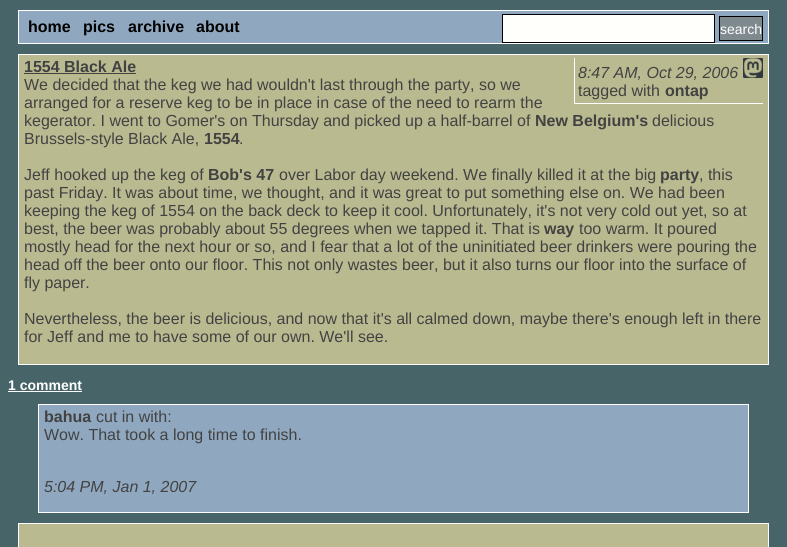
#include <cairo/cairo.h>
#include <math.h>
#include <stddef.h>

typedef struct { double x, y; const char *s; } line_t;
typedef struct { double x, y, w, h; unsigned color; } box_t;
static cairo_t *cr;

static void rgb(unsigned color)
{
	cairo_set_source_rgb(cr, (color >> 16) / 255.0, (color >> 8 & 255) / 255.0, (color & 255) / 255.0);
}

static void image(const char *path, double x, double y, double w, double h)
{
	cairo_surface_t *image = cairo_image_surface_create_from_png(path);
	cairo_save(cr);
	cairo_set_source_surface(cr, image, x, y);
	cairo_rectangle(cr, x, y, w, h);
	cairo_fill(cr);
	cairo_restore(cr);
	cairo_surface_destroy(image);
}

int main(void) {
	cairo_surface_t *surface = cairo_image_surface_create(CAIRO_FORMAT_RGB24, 787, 547);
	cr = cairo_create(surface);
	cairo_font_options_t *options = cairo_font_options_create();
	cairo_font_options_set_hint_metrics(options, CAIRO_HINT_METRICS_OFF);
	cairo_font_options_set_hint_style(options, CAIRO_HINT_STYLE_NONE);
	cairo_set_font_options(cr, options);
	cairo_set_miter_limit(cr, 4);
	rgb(0x476469);
	cairo_paint(cr);
	rgb(0x8fa8bf);
	cairo_rectangle(cr, 18.5, 10.5, 750, 33);
	cairo_fill_preserve(cr);
	rgb(0xffffff);
	cairo_set_line_width(cr, 1);
	cairo_stroke(cr);
	rgb(0xfffffc);
	cairo_rectangle(cr, 502.5, 14.5, 212, 28);
	cairo_fill_preserve(cr);
	rgb(0x000000);
	cairo_stroke(cr);
	rgb(0x7f8a8f);
	cairo_rectangle(cr, 719.5, 16.5, 43, 24);
	cairo_fill_preserve(cr);
	rgb(0x000000);
	cairo_stroke(cr);
	rgb(0xbaba91);
	cairo_rectangle(cr, 18.5, 54.5, 750, 310);
	cairo_fill_preserve(cr);
	rgb(0xffffff);
	cairo_stroke(cr);
	{
		static const box_t items[] = {
			{24, 73, 112, 1, 0x424242},
			{574, 103, 189, 1, 0xffffff},
			{574, 58, 1, 46, 0xffffff},
		};
		for (size_t i = 0; i < sizeof items / sizeof *items; i++) {
			rgb(items[i].color);
			cairo_rectangle(cr, items[i].x, items[i].y, items[i].w, items[i].h);
			cairo_fill(cr);
		}
	}
	image("img/1.png", 743, 58, 20, 20);
	cairo_rectangle(cr, 8, 391, 74, 1);
	cairo_fill(cr);
	rgb(0x8fa8bf);
	cairo_rectangle(cr, 38.5, 404.5, 710, 108);
	cairo_fill_preserve(cr);
	rgb(0xffffff);
	cairo_stroke(cr);
	rgb(0xbaba91);
	cairo_rectangle(cr, 18.5, 523.5, 750, 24);
	cairo_fill_preserve(cr);
	rgb(0xffffff);
	cairo_stroke(cr);
	cairo_select_font_face(cr, "Liberation Sans", CAIRO_FONT_SLANT_NORMAL, CAIRO_FONT_WEIGHT_BOLD);
	cairo_set_font_size(cr, 16);
	rgb(0x000000);
	{
		static const line_t items[] = {
			{28, 32, "home"},
			{83, 32, "pics"},
			{128, 32, "archive"},
			{196, 32, "about"},
		};
		for (size_t i = 0; i < sizeof items / sizeof *items; i++) {
			cairo_move_to(cr, items[i].x, items[i].y);
			cairo_show_text(cr, items[i].s);
		}
	}
	cairo_select_font_face(cr, "Liberation Sans", CAIRO_FONT_SLANT_NORMAL, CAIRO_FONT_WEIGHT_NORMAL);
	cairo_set_font_size(cr, 14);
	rgb(0xffffff);
	cairo_move_to(cr, 720, 34);
	cairo_show_text(cr, "search");
	cairo_select_font_face(cr, "Liberation Sans", CAIRO_FONT_SLANT_NORMAL, CAIRO_FONT_WEIGHT_BOLD);
	cairo_set_font_size(cr, 16);
	rgb(0x424242);
	cairo_move_to(cr, 24, 72);
	cairo_show_text(cr, "1554 Black Ale");
	cairo_select_font_face(cr, "Liberation Sans", CAIRO_FONT_SLANT_ITALIC, CAIRO_FONT_WEIGHT_NORMAL);
	cairo_move_to(cr, 578, 78);
	cairo_show_text(cr, "8:47 AM, Oct 29, 2006");
	cairo_select_font_face(cr, "Liberation Sans", CAIRO_FONT_SLANT_NORMAL, CAIRO_FONT_WEIGHT_NORMAL);
	cairo_move_to(cr, 578, 96);
	cairo_show_text(cr, "tagged with");
	cairo_select_font_face(cr, "Liberation Sans", CAIRO_FONT_SLANT_NORMAL, CAIRO_FONT_WEIGHT_BOLD);
	cairo_move_to(cr, 665, 96);
	cairo_show_text(cr, "ontap");
	cairo_select_font_face(cr, "Liberation Sans", CAIRO_FONT_SLANT_NORMAL, CAIRO_FONT_WEIGHT_NORMAL);
	{
		static const line_t items[] = {
			{24, 90, "We decided that the keg we had wouldn't last through the party, so we"},
			{24, 108, "arranged for a reserve keg to be in place in case of the need to rearm the"},
			{24, 126, "kegerator. I went to Gomer's on Thursday and picked up a half-barrel of"},
		};
		for (size_t i = 0; i < sizeof items / sizeof *items; i++) {
			cairo_move_to(cr, items[i].x, items[i].y);
			cairo_show_text(cr, items[i].s);
		}
	}
	cairo_select_font_face(cr, "Liberation Sans", CAIRO_FONT_SLANT_NORMAL, CAIRO_FONT_WEIGHT_BOLD);
	cairo_move_to(cr, 535, 126);
	cairo_show_text(cr, "New Belgium's");
	cairo_select_font_face(cr, "Liberation Sans", CAIRO_FONT_SLANT_NORMAL, CAIRO_FONT_WEIGHT_NORMAL);
	cairo_move_to(cr, 652, 126);
	cairo_show_text(cr, "delicious");
	cairo_move_to(cr, 24, 144);
	cairo_show_text(cr, "Brussels-style Black Ale,");
	cairo_select_font_face(cr, "Liberation Sans", CAIRO_FONT_SLANT_NORMAL, CAIRO_FONT_WEIGHT_BOLD);
	cairo_move_to(cr, 204, 144);
	cairo_show_text(cr, "1554");
	cairo_select_font_face(cr, "Liberation Sans", CAIRO_FONT_SLANT_NORMAL, CAIRO_FONT_WEIGHT_NORMAL);
	cairo_move_to(cr, 239, 144);
	cairo_show_text(cr, ".");
	cairo_move_to(cr, 24, 180);
	cairo_show_text(cr, "Jeff hooked up the keg of");
	cairo_select_font_face(cr, "Liberation Sans", CAIRO_FONT_SLANT_NORMAL, CAIRO_FONT_WEIGHT_BOLD);
	cairo_move_to(cr, 208, 180);
	cairo_show_text(cr, "Bob's 47");
	cairo_select_font_face(cr, "Liberation Sans", CAIRO_FONT_SLANT_NORMAL, CAIRO_FONT_WEIGHT_NORMAL);
	cairo_move_to(cr, 279, 180);
	cairo_show_text(cr, "over Labor day weekend. We finally killed it at the big");
	cairo_select_font_face(cr, "Liberation Sans", CAIRO_FONT_SLANT_NORMAL, CAIRO_FONT_WEIGHT_BOLD);
	cairo_move_to(cr, 660, 180);
	cairo_show_text(cr, "party");
	cairo_select_font_face(cr, "Liberation Sans", CAIRO_FONT_SLANT_NORMAL, CAIRO_FONT_WEIGHT_NORMAL);
	{
		static const line_t items[] = {
			{699, 180, ", this"},
			{24, 198, "past Friday. It was about time, we thought, and it was great to put something else on. We had been"},
			{24, 216, "keeping the keg of 1554 on the back deck to keep it cool. Unfortunately, it's not very cold out yet, so at"},
			{24, 234, "best, the beer was probably about 55 degrees when we tapped it. That is"},
		};
		for (size_t i = 0; i < sizeof items / sizeof *items; i++) {
			cairo_move_to(cr, items[i].x, items[i].y);
			cairo_show_text(cr, items[i].s);
		}
	}
	cairo_select_font_face(cr, "Liberation Sans", CAIRO_FONT_SLANT_NORMAL, CAIRO_FONT_WEIGHT_BOLD);
	cairo_move_to(cr, 544, 234);
	cairo_show_text(cr, "way");
	cairo_select_font_face(cr, "Liberation Sans", CAIRO_FONT_SLANT_NORMAL, CAIRO_FONT_WEIGHT_NORMAL);
	{
		static const line_t items[] = {
			{579, 234, "too warm. It poured"},
			{24, 252, "mostly head for the next hour or so, and I fear that a lot of the uninitiated beer drinkers were pouring the"},
			{24, 270, "head off the beer onto our floor. This not only wastes beer, but it also turns our floor into the surface of"},
			{24, 288, "fly paper."},
			{24, 324, "Nevertheless, the beer is delicious, and now that it's all calmed down, maybe there's enough left in there"},
			{24, 342, "for Jeff and me to have some of our own. We'll see."},
		};
		for (size_t i = 0; i < sizeof items / sizeof *items; i++) {
			cairo_move_to(cr, items[i].x, items[i].y);
			cairo_show_text(cr, items[i].s);
		}
	}
	cairo_select_font_face(cr, "Liberation Sans", CAIRO_FONT_SLANT_NORMAL, CAIRO_FONT_WEIGHT_BOLD);
	cairo_set_font_size(cr, 14);
	rgb(0xffffff);
	cairo_move_to(cr, 8, 390);
	cairo_show_text(cr, "1 comment");
	cairo_set_font_size(cr, 16);
	rgb(0x424242);
	cairo_move_to(cr, 44, 422);
	cairo_show_text(cr, "bahua");
	cairo_select_font_face(cr, "Liberation Sans", CAIRO_FONT_SLANT_NORMAL, CAIRO_FONT_WEIGHT_NORMAL);
	cairo_move_to(cr, 96, 422);
	cairo_show_text(cr, "cut in with:");
	cairo_move_to(cr, 44, 440);
	cairo_show_text(cr, "Wow. That took a long time to finish.");
	cairo_select_font_face(cr, "Liberation Sans", CAIRO_FONT_SLANT_ITALIC, CAIRO_FONT_WEIGHT_NORMAL);
	cairo_move_to(cr, 44, 492);
	cairo_show_text(cr, "5:04 PM, Jan 1, 2007");
	cairo_surface_write_to_png(surface, "page.png");
	cairo_font_options_destroy(options);
	cairo_destroy(cr);
	cairo_surface_destroy(surface);
	return 0;
}
